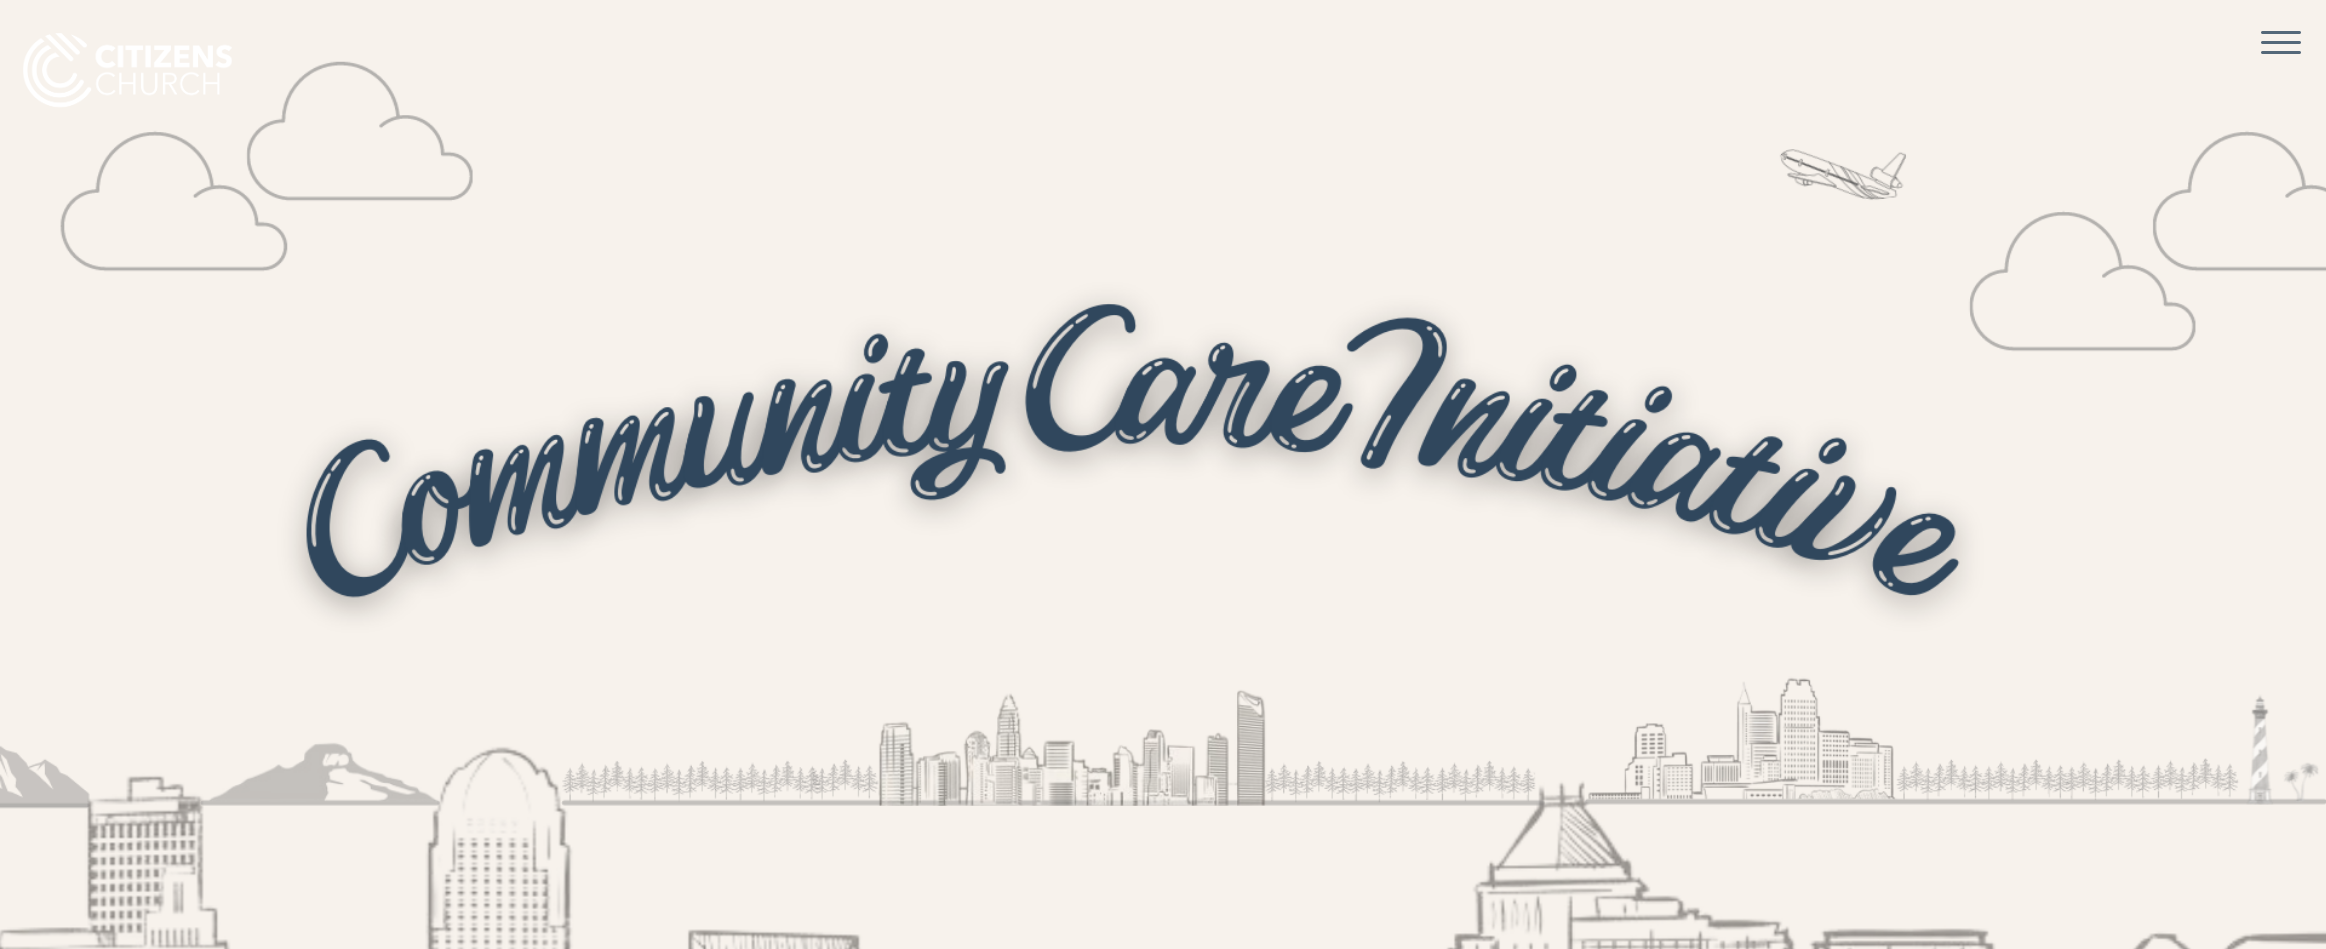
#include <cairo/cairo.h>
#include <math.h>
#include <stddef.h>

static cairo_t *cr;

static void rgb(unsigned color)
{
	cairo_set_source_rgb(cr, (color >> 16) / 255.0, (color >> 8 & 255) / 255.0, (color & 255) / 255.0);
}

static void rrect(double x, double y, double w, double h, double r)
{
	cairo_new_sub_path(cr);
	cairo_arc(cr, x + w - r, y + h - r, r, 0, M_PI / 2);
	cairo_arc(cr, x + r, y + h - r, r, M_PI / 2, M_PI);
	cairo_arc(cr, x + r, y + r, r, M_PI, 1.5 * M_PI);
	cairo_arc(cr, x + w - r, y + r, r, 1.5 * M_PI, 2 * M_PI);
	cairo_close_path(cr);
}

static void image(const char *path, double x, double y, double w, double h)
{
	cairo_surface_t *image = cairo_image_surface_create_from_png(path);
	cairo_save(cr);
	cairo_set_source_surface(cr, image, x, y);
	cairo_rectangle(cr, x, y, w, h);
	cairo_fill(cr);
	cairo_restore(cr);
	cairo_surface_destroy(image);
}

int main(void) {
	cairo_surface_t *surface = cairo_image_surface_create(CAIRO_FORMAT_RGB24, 2326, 949);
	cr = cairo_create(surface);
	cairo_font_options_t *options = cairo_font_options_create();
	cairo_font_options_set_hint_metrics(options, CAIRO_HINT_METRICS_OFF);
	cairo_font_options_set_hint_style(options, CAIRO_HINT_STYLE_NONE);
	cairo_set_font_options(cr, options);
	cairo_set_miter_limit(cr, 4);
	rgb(0xffffff);
	cairo_paint(cr);
	image("img/1.png", 0, 0, 2326, 949);
	image("img/2.png", 1, 61, 2325, 888);
	image("img/3.png", 23, 33, 209, 75);
	rgb(0x546879);
	rrect(2261, 31, 40, 3, 1.5);
	cairo_fill(cr);
	rrect(2261, 41, 40, 3, 1.5);
	cairo_fill(cr);
	rrect(2261, 51, 40, 3, 1.5);
	cairo_fill(cr);
	cairo_surface_write_to_png(surface, "page.png");
	cairo_font_options_destroy(options);
	cairo_destroy(cr);
	cairo_surface_destroy(surface);
	return 0;
}
